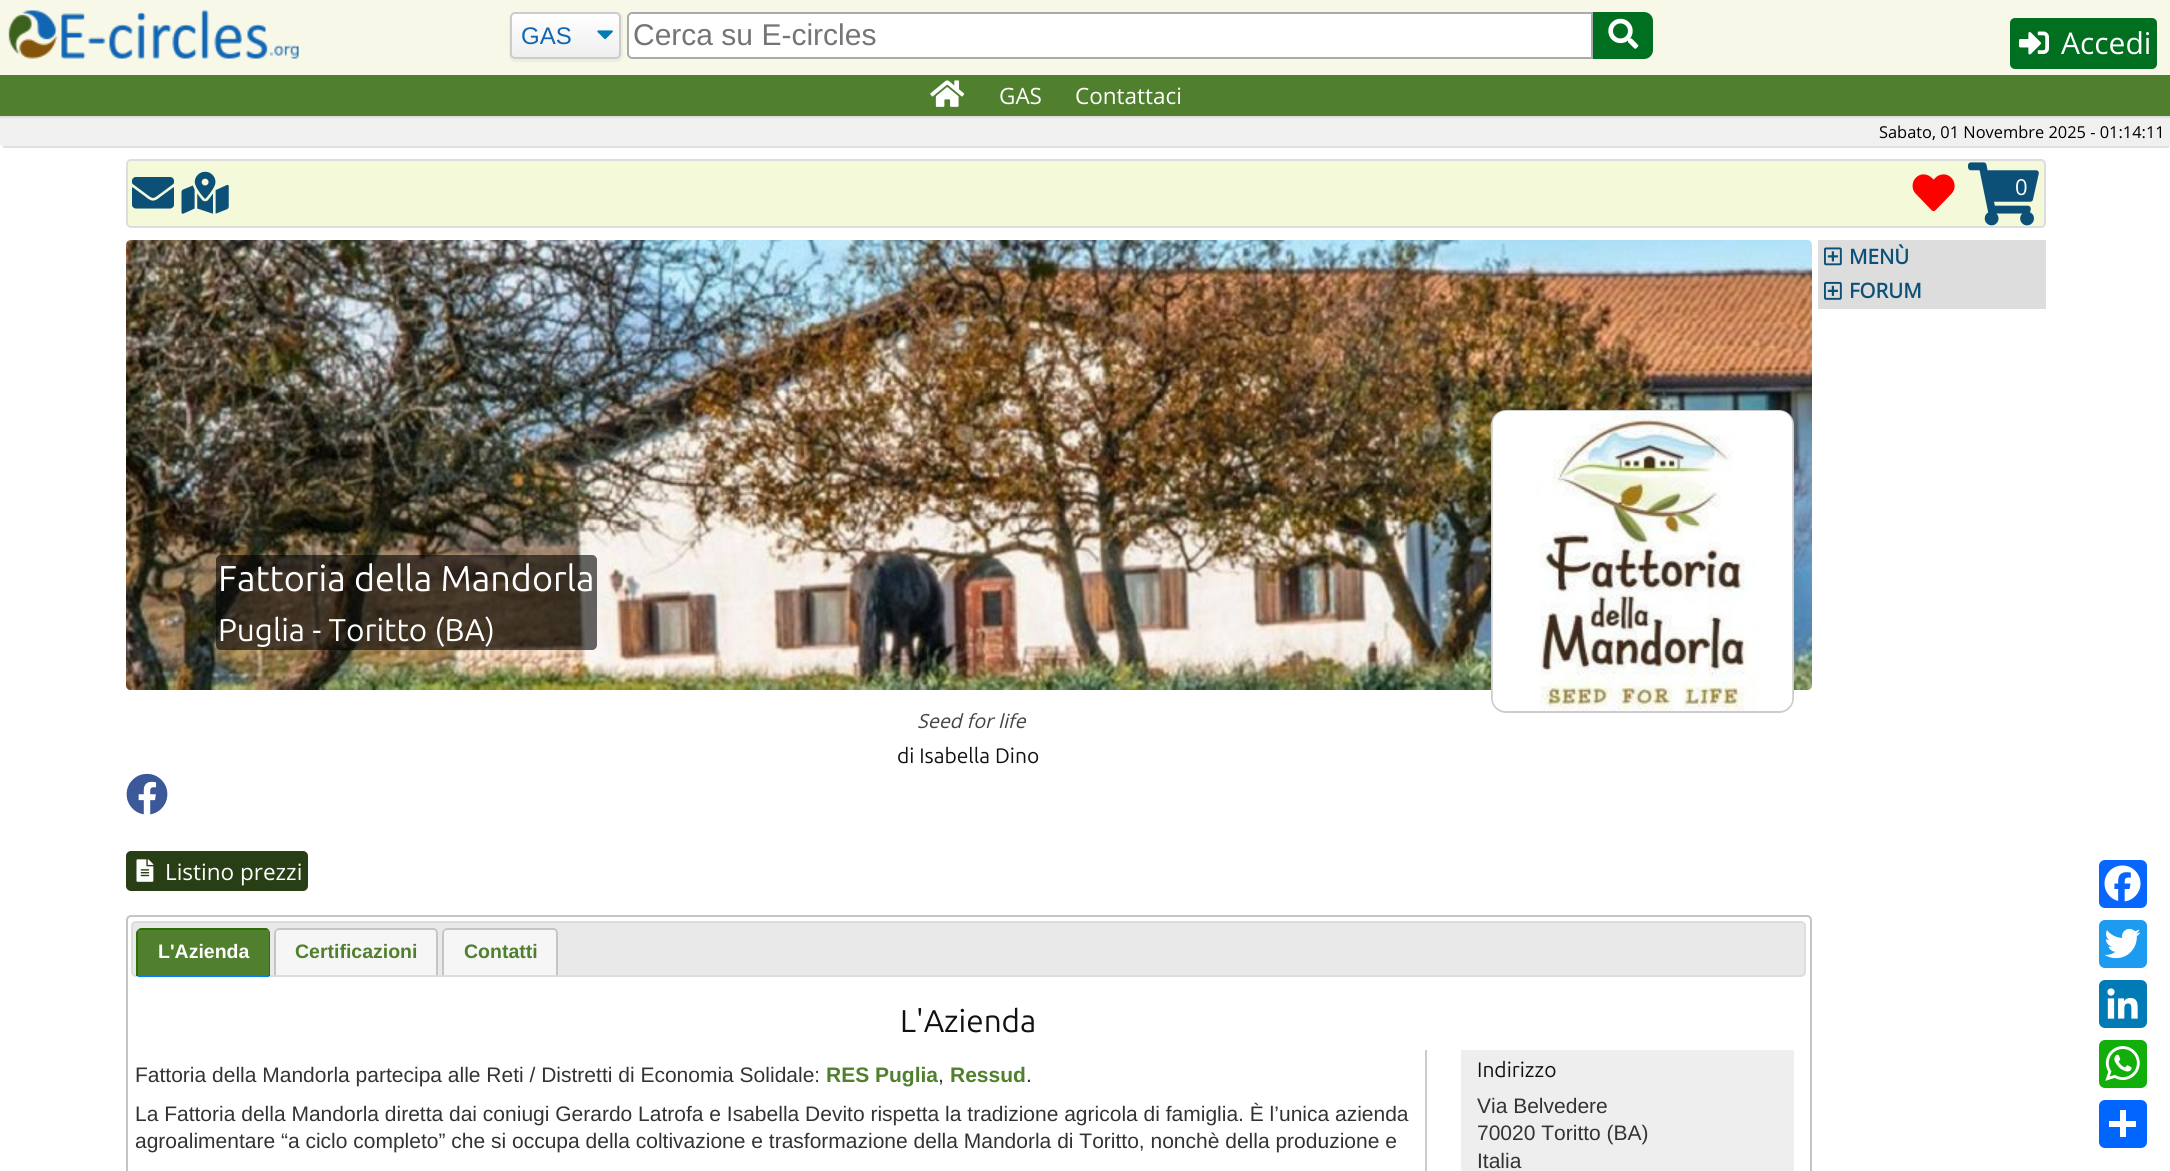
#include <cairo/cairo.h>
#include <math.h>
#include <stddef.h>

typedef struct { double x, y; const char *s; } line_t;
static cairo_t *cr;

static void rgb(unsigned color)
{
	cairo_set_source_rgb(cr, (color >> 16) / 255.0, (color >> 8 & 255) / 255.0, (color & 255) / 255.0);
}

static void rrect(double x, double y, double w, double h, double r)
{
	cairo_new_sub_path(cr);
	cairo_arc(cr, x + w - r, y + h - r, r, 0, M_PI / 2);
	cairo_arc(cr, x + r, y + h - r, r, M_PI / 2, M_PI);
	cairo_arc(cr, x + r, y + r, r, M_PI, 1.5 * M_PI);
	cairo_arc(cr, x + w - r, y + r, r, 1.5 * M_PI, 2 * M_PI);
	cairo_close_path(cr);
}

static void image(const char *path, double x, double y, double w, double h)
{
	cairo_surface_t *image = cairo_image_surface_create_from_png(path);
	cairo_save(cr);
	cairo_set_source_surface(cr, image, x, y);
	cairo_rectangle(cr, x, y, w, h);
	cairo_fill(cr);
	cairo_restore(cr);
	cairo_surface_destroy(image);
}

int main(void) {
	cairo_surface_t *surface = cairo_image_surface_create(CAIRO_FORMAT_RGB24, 2170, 1171);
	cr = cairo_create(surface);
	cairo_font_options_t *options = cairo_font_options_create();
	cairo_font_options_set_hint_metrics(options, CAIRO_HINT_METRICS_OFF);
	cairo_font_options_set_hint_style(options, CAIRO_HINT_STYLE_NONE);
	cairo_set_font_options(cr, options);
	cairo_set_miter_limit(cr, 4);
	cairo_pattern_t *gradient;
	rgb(0xffffff);
	cairo_paint(cr);
	rgb(0xf8f8e8);
	cairo_rectangle(cr, 0, 0, 2170, 75);
	cairo_fill(cr);
	image("img/1.png", 8, 10, 291, 49);
	rgb(0xeeeedf);
	cairo_new_path(cr);
	cairo_move_to(cr, 617, 12);
	cairo_curve_to(cr, 619, 12, 621, 14, 621, 16);
	cairo_line_to(cr, 621, 54);
	cairo_curve_to(cr, 621, 56, 619, 58, 617, 58);
	cairo_line_to(cr, 515, 58);
	cairo_curve_to(cr, 512, 58, 510, 56, 510, 54);
	cairo_line_to(cr, 510, 16);
	cairo_curve_to(cr, 510, 14, 512, 13, 514, 12);
	cairo_curve_to(cr, 511, 13, 509, 15, 509, 18);
	cairo_line_to(cr, 509, 56);
	cairo_curve_to(cr, 509, 59, 512, 62, 515, 62);
	cairo_line_to(cr, 617, 62);
	cairo_curve_to(cr, 620, 62, 623, 59, 623, 56);
	cairo_line_to(cr, 623, 18);
	cairo_curve_to(cr, 623, 15, 620, 12, 617, 12);
	cairo_close_path(cr);
	cairo_fill(cr);
	cairo_save(cr);
	rrect(510, 12, 111, 47, 5);
	cairo_clip(cr);
	gradient = cairo_pattern_create_linear(566, 13, 566, 57);
	cairo_pattern_add_color_stop_rgba(gradient, 0, 1, 1, 1, 1);
	cairo_pattern_add_color_stop_rgba(gradient, 1, 0.937, 0.937, 0.937, 1);
	cairo_set_source(cr, gradient);
	cairo_pattern_destroy(gradient);
	cairo_rectangle(cr, 510, 14, 111, 43);
	cairo_fill(cr);
	cairo_restore(cr);
	image("img/2.png", 597, 30, 16, 10);
	rrect(511, 13, 109, 45, 4);
	rgb(0xcccccc);
	cairo_stroke(cr);
	rgb(0xffffff);
	cairo_new_path(cr);
	cairo_move_to(cr, 632, 13);
	cairo_line_to(cr, 1592, 13);
	cairo_line_to(cr, 1592, 58);
	cairo_line_to(cr, 632, 58);
	cairo_curve_to(cr, 630, 58, 628, 56, 628, 54);
	cairo_line_to(cr, 628, 17);
	cairo_curve_to(cr, 628, 15, 630, 13, 632, 13);
	cairo_close_path(cr);
	cairo_fill_preserve(cr);
	rgb(0xaaaaaa);
	cairo_stroke(cr);
	rgb(0x007020);
	cairo_new_path(cr);
	cairo_move_to(cr, 1593, 12);
	cairo_line_to(cr, 1644, 12);
	cairo_curve_to(cr, 1649, 12, 1653, 16, 1653, 21);
	cairo_line_to(cr, 1653, 50);
	cairo_curve_to(cr, 1653, 55, 1649, 59, 1644, 59);
	cairo_line_to(cr, 1593, 59);
	cairo_close_path(cr);
	cairo_fill(cr);
	image("img/3.png", 1608, 18, 31, 31);
	rrect(2010, 18, 147, 51, 5);
	cairo_fill(cr);
	image("img/4.png", 2019, 31, 30, 24);
	rgb(0x507f2d);
	cairo_rectangle(cr, 0, 75, 2170, 41);
	cairo_fill(cr);
	image("img/5.png", 930, 80, 35, 27);
	rgb(0xf0f0f0);
	cairo_new_path(cr);
	cairo_move_to(cr, 0, 116);
	cairo_line_to(cr, 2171, 116);
	cairo_line_to(cr, 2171, 142);
	cairo_curve_to(cr, 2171, 145, 2169, 147, 2166, 147);
	cairo_line_to(cr, 5, 147);
	cairo_curve_to(cr, 2, 147, 0, 145, 0, 142);
	cairo_close_path(cr);
	cairo_fill(cr);
	rgb(0xe0e0e0);
	cairo_rectangle(cr, 0, 116, 2170, 2);
	cairo_fill(cr);
	cairo_rectangle(cr, 3, 146, 2166, 2);
	cairo_fill(cr);
	rgb(0xf3f9d9);
	rrect(127, 160, 1918, 67, 4);
	cairo_fill_preserve(cr);
	rgb(0xdddddd);
	cairo_stroke(cr);
	image("img/6.png", 132, 177, 42, 32);
	image("img/7.png", 181, 171, 48, 43);
	image("img/8.png", 1912, 174, 43, 38);
	image("img/9.png", 1968, 162, 71, 64);
	cairo_rectangle(cr, 1818, 240, 228, 69);
	cairo_fill(cr);
	image("img/10.png", 1824, 247, 18, 19);
	image("img/11.png", 1824, 281, 18, 19);
	image("img/12.png", 126, 240, 1686, 450);
	cairo_set_source_rgba(cr, 0, 0, 0, 0.6);
	rrect(216, 555, 381, 95, 5);
	cairo_fill(cr);
	rrect(1492, 411, 301, 301, 14);
	rgb(0xcccccc);
	cairo_stroke(cr);
	image("img/13.png", 1492, 411, 301, 300);
	image("img/14.png", 126, 773, 42, 42);
	rgb(0x283f16);
	rrect(126, 851, 182, 40, 5);
	cairo_fill(cr);
	image("img/15.png", 136, 859, 18, 23);
	rrect(127, 916, 1684, 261, 4);
	rgb(0xc5c5c5);
	cairo_stroke(cr);
	rgb(0xe9e9e9);
	rrect(132, 922, 1673, 54, 4);
	cairo_fill_preserve(cr);
	rgb(0xdddddd);
	cairo_stroke(cr);
	rgb(0x007fff);
	cairo_rectangle(cr, 138, 975, 131, 2);
	cairo_fill(cr);
	rgb(0x2d6f0a);
	cairo_set_fill_rule(cr, CAIRO_FILL_RULE_EVEN_ODD);
	cairo_new_path(cr);
	cairo_move_to(cr, 141, 928);
	cairo_line_to(cr, 266, 928);
	cairo_curve_to(cr, 268, 928, 270, 931, 270, 933);
	cairo_line_to(cr, 270, 976);
	cairo_line_to(cr, 136, 976);
	cairo_line_to(cr, 136, 933);
	cairo_curve_to(cr, 136, 931, 139, 928, 141, 928);
	cairo_close_path(cr);
	cairo_move_to(cr, 141, 930);
	cairo_line_to(cr, 266, 930);
	cairo_curve_to(cr, 267, 930, 268, 931, 268, 933);
	cairo_line_to(cr, 268, 976);
	cairo_line_to(cr, 138, 976);
	cairo_line_to(cr, 138, 933);
	cairo_curve_to(cr, 138, 931, 139, 930, 141, 930);
	cairo_close_path(cr);
	cairo_fill(cr);
	rgb(0x507f2d);
	cairo_rectangle(cr, 138, 930, 131, 45);
	cairo_fill(cr);
	rgb(0xf6f6f6);
	cairo_new_path(cr);
	cairo_move_to(cr, 279, 930);
	cairo_line_to(cr, 434, 930);
	cairo_curve_to(cr, 435.5, 930, 437, 931.5, 437, 933);
	cairo_line_to(cr, 437, 975);
	cairo_line_to(cr, 276, 975);
	cairo_line_to(cr, 276, 933);
	cairo_curve_to(cr, 276, 931.5, 277.5, 930, 279, 930);
	cairo_close_path(cr);
	cairo_fill(cr);
	rgb(0xc5c5c5);
	cairo_new_path(cr);
	cairo_move_to(cr, 279, 928);
	cairo_line_to(cr, 434, 928);
	cairo_curve_to(cr, 436, 928, 438, 931, 438, 933);
	cairo_line_to(cr, 438, 975);
	cairo_line_to(cr, 274, 975);
	cairo_line_to(cr, 274, 933);
	cairo_curve_to(cr, 274, 931, 277, 928, 279, 928);
	cairo_close_path(cr);
	cairo_move_to(cr, 279, 930);
	cairo_line_to(cr, 434, 930);
	cairo_curve_to(cr, 435, 930, 436, 931, 436, 933);
	cairo_line_to(cr, 436, 975);
	cairo_line_to(cr, 276, 975);
	cairo_line_to(cr, 276, 933);
	cairo_curve_to(cr, 276, 931, 277, 930, 279, 930);
	cairo_close_path(cr);
	cairo_fill(cr);
	rgb(0xf6f6f6);
	cairo_new_path(cr);
	cairo_move_to(cr, 447, 930);
	cairo_line_to(cr, 554, 930);
	cairo_curve_to(cr, 555.5, 930, 557, 931.5, 557, 933);
	cairo_line_to(cr, 557, 975);
	cairo_line_to(cr, 444, 975);
	cairo_line_to(cr, 444, 933);
	cairo_curve_to(cr, 444, 931.5, 445.5, 930, 447, 930);
	cairo_close_path(cr);
	cairo_fill(cr);
	rgb(0xc5c5c5);
	cairo_new_path(cr);
	cairo_move_to(cr, 447, 928);
	cairo_line_to(cr, 554, 928);
	cairo_curve_to(cr, 556, 928, 558, 931, 558, 933);
	cairo_line_to(cr, 558, 975);
	cairo_line_to(cr, 442, 975);
	cairo_line_to(cr, 442, 933);
	cairo_curve_to(cr, 442, 931, 445, 928, 447, 928);
	cairo_close_path(cr);
	cairo_move_to(cr, 447, 930);
	cairo_line_to(cr, 554, 930);
	cairo_curve_to(cr, 555, 930, 556, 931, 556, 933);
	cairo_line_to(cr, 556, 975);
	cairo_line_to(cr, 444, 975);
	cairo_line_to(cr, 444, 933);
	cairo_curve_to(cr, 444, 931, 445, 930, 447, 930);
	cairo_close_path(cr);
	cairo_fill(cr);
	rgb(0xcccccc);
	cairo_rectangle(cr, 1425, 1050, 2, 121);
	cairo_fill(cr);
	rgb(0xeeeeee);
	cairo_rectangle(cr, 1461, 1050, 333, 121);
	cairo_fill(cr);
	rgb(0x0866ff);
	rrect(2099, 860, 48, 48, 6);
	cairo_fill(cr);
	image("img/16.png", 2104, 865, 37, 37);
	rgb(0x1d9bf0);
	rrect(2099, 920, 48, 48, 6);
	cairo_fill(cr);
	image("img/17.png", 2104, 928, 37, 31);
	rgb(0x007bb5);
	rrect(2099, 980, 48, 48, 6);
	cairo_fill(cr);
	image("img/18.png", 2107, 988, 31, 31);
	rgb(0x12af0a);
	rrect(2099, 1040, 48, 48, 6);
	cairo_fill(cr);
	image("img/19.png", 2105, 1046, 35, 35);
	rgb(0x0166ff);
	rrect(2099, 1100, 48, 48, 6);
	cairo_fill(cr);
	rgb(0xffffff);
	cairo_rectangle(cr, 2120, 1110, 6, 27);
	cairo_fill(cr);
	cairo_rectangle(cr, 2109, 1121, 27, 6);
	cairo_fill(cr);
	cairo_select_font_face(cr, "Liberation Sans", CAIRO_FONT_SLANT_NORMAL, CAIRO_FONT_WEIGHT_NORMAL);
	cairo_set_font_size(cr, 24);
	rgb(0x1066b3);
	cairo_move_to(cr, 521, 44);
	cairo_show_text(cr, "GAS");
	cairo_set_font_size(cr, 30);
	rgb(0x757575);
	cairo_move_to(cr, 633, 45);
	cairo_show_text(cr, "Cerca su E-circles");
	cairo_select_font_face(cr, "Open Sans", CAIRO_FONT_SLANT_NORMAL, CAIRO_FONT_WEIGHT_NORMAL);
	rgb(0xffffff);
	cairo_move_to(cr, 2061, 54);
	cairo_show_text(cr, "Accedi");
	cairo_set_font_size(cr, 22.5);
	cairo_move_to(cr, 999, 104);
	cairo_show_text(cr, "GAS");
	cairo_move_to(cr, 1075, 104);
	cairo_show_text(cr, "Contattaci");
	cairo_set_font_size(cr, 16.4);
	rgb(0x000000);
	cairo_move_to(cr, 1879, 138);
	cairo_show_text(cr, "Sabato, 01 Novembre 2025 - 01:14:11");
	cairo_set_font_size(cr, 22);
	rgb(0xffffff);
	cairo_move_to(cr, 2015, 195);
	cairo_show_text(cr, "0");
	cairo_select_font_face(cr, "Open Sans", CAIRO_FONT_SLANT_NORMAL, CAIRO_FONT_WEIGHT_BOLD);
	cairo_set_font_size(cr, 20.5);
	rgb(0x0c5078);
	cairo_move_to(cr, 1849, 264);
	cairo_show_text(cr, "MENÙ");
	cairo_move_to(cr, 1849, 298);
	cairo_show_text(cr, "FORUM");
	cairo_select_font_face(cr, "Ubuntu", CAIRO_FONT_SLANT_NORMAL, CAIRO_FONT_WEIGHT_NORMAL);
	cairo_set_font_size(cr, 36);
	rgb(0xffffff);
	cairo_move_to(cr, 218, 591);
	cairo_show_text(cr, "Fattoria della Mandorla");
	cairo_set_font_size(cr, 31.5);
	cairo_move_to(cr, 218, 641);
	cairo_show_text(cr, "Puglia - Toritto (BA)");
	cairo_select_font_face(cr, "Open Sans", CAIRO_FONT_SLANT_ITALIC, CAIRO_FONT_WEIGHT_NORMAL);
	cairo_set_font_size(cr, 19.5);
	rgb(0x444444);
	cairo_move_to(cr, 917, 728);
	cairo_show_text(cr, "Seed for life");
	cairo_select_font_face(cr, "Ubuntu", CAIRO_FONT_SLANT_NORMAL, CAIRO_FONT_WEIGHT_NORMAL);
	cairo_set_font_size(cr, 21);
	rgb(0x111111);
	cairo_move_to(cr, 897, 763);
	cairo_show_text(cr, "di Isabella Dino");
	cairo_select_font_face(cr, "Open Sans", CAIRO_FONT_SLANT_NORMAL, CAIRO_FONT_WEIGHT_NORMAL);
	cairo_set_font_size(cr, 22.5);
	rgb(0xffffff);
	cairo_move_to(cr, 165, 880);
	cairo_show_text(cr, "Listino prezzi");
	cairo_select_font_face(cr, "Liberation Sans", CAIRO_FONT_SLANT_NORMAL, CAIRO_FONT_WEIGHT_BOLD);
	cairo_set_font_size(cr, 19.5);
	cairo_move_to(cr, 158, 958);
	cairo_show_text(cr, "L'Azienda");
	rgb(0x507f2d);
	cairo_move_to(cr, 295, 958);
	cairo_show_text(cr, "Certificazioni");
	cairo_move_to(cr, 464, 958);
	cairo_show_text(cr, "Contatti");
	cairo_select_font_face(cr, "Ubuntu", CAIRO_FONT_SLANT_NORMAL, CAIRO_FONT_WEIGHT_NORMAL);
	cairo_set_font_size(cr, 31.5);
	rgb(0x111111);
	cairo_move_to(cr, 900, 1032);
	cairo_show_text(cr, "L'Azienda");
	cairo_select_font_face(cr, "Liberation Sans", CAIRO_FONT_SLANT_NORMAL, CAIRO_FONT_WEIGHT_NORMAL);
	cairo_set_font_size(cr, 21);
	rgb(0x333333);
	cairo_move_to(cr, 135, 1082);
	cairo_show_text(cr, "Fattoria della Mandorla partecipa alle Reti / Distretti di Economia Solidale:");
	cairo_select_font_face(cr, "Liberation Sans", CAIRO_FONT_SLANT_NORMAL, CAIRO_FONT_WEIGHT_BOLD);
	rgb(0x507f2d);
	cairo_move_to(cr, 826, 1082);
	cairo_show_text(cr, "RES Puglia");
	cairo_select_font_face(cr, "Liberation Sans", CAIRO_FONT_SLANT_NORMAL, CAIRO_FONT_WEIGHT_NORMAL);
	rgb(0x333333);
	cairo_move_to(cr, 938, 1082);
	cairo_show_text(cr, ",");
	cairo_select_font_face(cr, "Liberation Sans", CAIRO_FONT_SLANT_NORMAL, CAIRO_FONT_WEIGHT_BOLD);
	rgb(0x507f2d);
	cairo_move_to(cr, 950, 1082);
	cairo_show_text(cr, "Ressud");
	cairo_select_font_face(cr, "Liberation Sans", CAIRO_FONT_SLANT_NORMAL, CAIRO_FONT_WEIGHT_NORMAL);
	rgb(0x333333);
	{
		static const line_t items[] = {
			{1026, 1082, "."},
			{135, 1121, "La Fattoria della Mandorla diretta dai coniugi Gerardo Latrofa e Isabella Devito rispetta la tradizione agricola di famiglia. È l’unica azienda"},
			{135, 1148, "agroalimentare “a ciclo completo” che si occupa della coltivazione e trasformazione della Mandorla di Toritto, nonchè della produzione e"},
		};
		for (size_t i = 0; i < sizeof items / sizeof *items; i++) {
			cairo_move_to(cr, items[i].x, items[i].y);
			cairo_show_text(cr, items[i].s);
		}
	}
	cairo_select_font_face(cr, "Ubuntu", CAIRO_FONT_SLANT_NORMAL, CAIRO_FONT_WEIGHT_NORMAL);
	rgb(0x111111);
	cairo_move_to(cr, 1477, 1077);
	cairo_show_text(cr, "Indirizzo");
	cairo_select_font_face(cr, "Liberation Sans", CAIRO_FONT_SLANT_NORMAL, CAIRO_FONT_WEIGHT_NORMAL);
	rgb(0x333333);
	{
		static const line_t items[] = {
			{1477, 1113, "Via Belvedere"},
			{1477, 1140, "70020 Toritto (BA)"},
			{1477, 1168, "Italia"},
		};
		for (size_t i = 0; i < sizeof items / sizeof *items; i++) {
			cairo_move_to(cr, items[i].x, items[i].y);
			cairo_show_text(cr, items[i].s);
		}
	}
	cairo_surface_write_to_png(surface, "page.png");
	cairo_font_options_destroy(options);
	cairo_destroy(cr);
	cairo_surface_destroy(surface);
	return 0;
}
